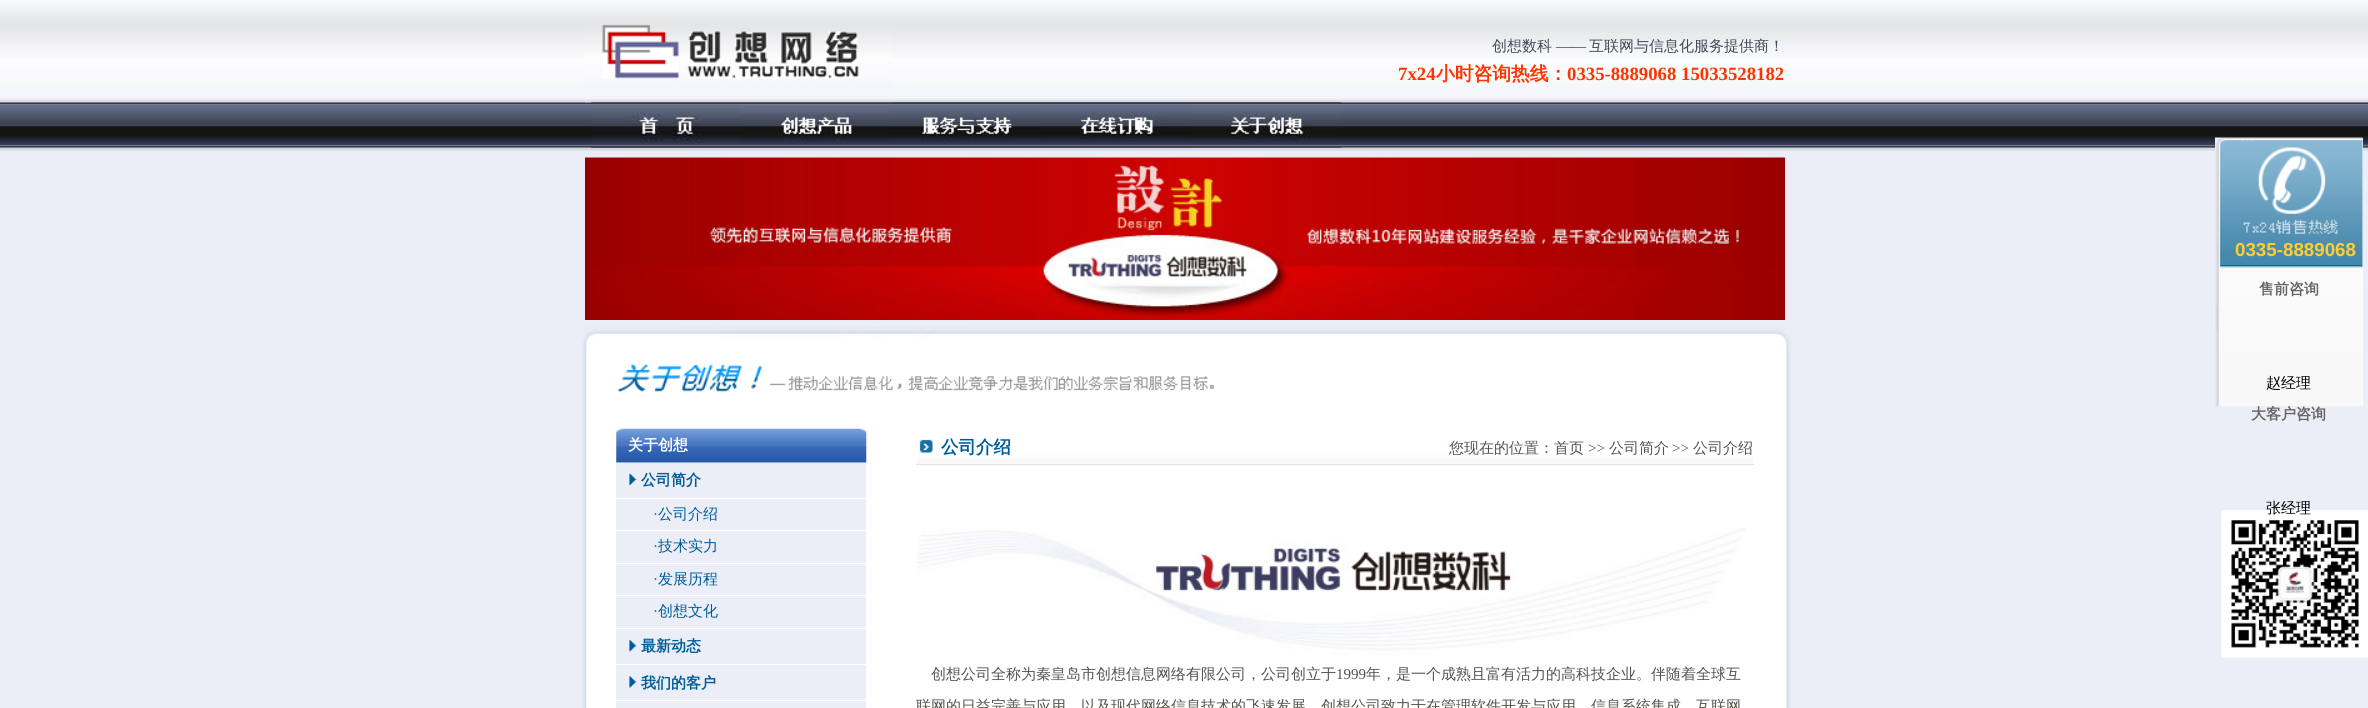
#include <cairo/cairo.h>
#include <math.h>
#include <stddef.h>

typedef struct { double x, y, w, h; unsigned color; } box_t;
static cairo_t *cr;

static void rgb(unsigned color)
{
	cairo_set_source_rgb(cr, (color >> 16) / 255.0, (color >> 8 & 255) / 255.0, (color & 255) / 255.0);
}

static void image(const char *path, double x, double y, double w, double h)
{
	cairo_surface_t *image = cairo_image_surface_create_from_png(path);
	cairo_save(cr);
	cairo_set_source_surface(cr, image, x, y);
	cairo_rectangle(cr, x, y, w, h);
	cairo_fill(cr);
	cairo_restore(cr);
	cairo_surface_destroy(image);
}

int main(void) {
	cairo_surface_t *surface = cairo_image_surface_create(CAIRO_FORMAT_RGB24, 2368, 708);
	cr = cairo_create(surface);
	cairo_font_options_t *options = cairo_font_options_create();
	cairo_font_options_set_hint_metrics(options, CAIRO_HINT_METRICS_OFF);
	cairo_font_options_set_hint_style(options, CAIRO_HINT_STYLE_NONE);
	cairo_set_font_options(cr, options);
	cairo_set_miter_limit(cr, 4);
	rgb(0xebeef6);
	cairo_paint(cr);
	image("img/1.png", 0, 0, 2368, 151);
	image("img/2.png", 585, 24, 308, 79);
	image("img/3.png", 591, 102, 151, 46);
	image("img/4.png", 741, 102, 151, 46);
	image("img/5.png", 891, 102, 151, 46);
	image("img/6.png", 1041, 102, 151, 46);
	image("img/7.png", 1191, 102, 151, 46);
	image("img/8.png", 585, 157, 1200, 163);
	image("img/10.png", 582, 348, 1209, 360);
	image("img/9.png", 581, 326, 1210, 23);
	image("img/11.png", 617, 363, 597, 29);
	image("img/12.png", 616, 428, 251, 35);
	rgb(0xebeef7);
	cairo_rectangle(cr, 616, 463, 250, 245);
	cairo_fill(cr);
	image("img/13.png", 629, 473, 8, 13);
	{
		static const box_t items[] = {
			{616, 498, 250, 1, 0xffffff},
			{616, 530, 250, 1, 0xffffff},
			{616, 563, 250, 1, 0xffffff},
			{616, 595, 250, 1, 0xffffff},
			{616, 628, 250, 1, 0xffffff},
		};
		for (size_t i = 0; i < sizeof items / sizeof *items; i++) {
			rgb(items[i].color);
			cairo_rectangle(cr, items[i].x, items[i].y, items[i].w, items[i].h);
			cairo_fill(cr);
		}
	}
	image("img/14.png", 629, 639, 8, 13);
	cairo_rectangle(cr, 616, 664, 250, 1);
	cairo_fill(cr);
	image("img/15.png", 629, 676, 8, 12);
	cairo_rectangle(cr, 616, 700, 250, 1);
	cairo_fill(cr);
	image("img/16.png", 916, 439, 838, 27);
	image("img/17.png", 916, 528, 830, 127);
	cairo_rectangle(cr, 2362, 138, 1, 268);
	cairo_fill(cr);
	image("img/18.png", 2215, 137, 148, 270);
	image("img/19.png", 2221, 510, 147, 148);
	cairo_select_font_face(cr, "WenQuanYi Zen Hei Medium", CAIRO_FONT_SLANT_NORMAL, CAIRO_FONT_WEIGHT_NORMAL);
	cairo_set_font_size(cr, 15);
	rgb(0x414959);
	cairo_move_to(cr, 1492, 51);
	cairo_show_text(cr, "创想数科");
	cairo_select_font_face(cr, "Liberation Serif", CAIRO_FONT_SLANT_NORMAL, CAIRO_FONT_WEIGHT_NORMAL);
	cairo_move_to(cr, 1556, 51);
	cairo_show_text(cr, "――");
	cairo_select_font_face(cr, "WenQuanYi Zen Hei Medium", CAIRO_FONT_SLANT_NORMAL, CAIRO_FONT_WEIGHT_NORMAL);
	cairo_move_to(cr, 1589, 51);
	cairo_show_text(cr, "互联网与信息化服务提供商！");
	cairo_select_font_face(cr, "Liberation Serif", CAIRO_FONT_SLANT_NORMAL, CAIRO_FONT_WEIGHT_BOLD);
	cairo_set_font_size(cr, 18.75);
	rgb(0xff3300);
	cairo_move_to(cr, 1398, 80);
	cairo_show_text(cr, "7x24");
	cairo_select_font_face(cr, "WenQuanYi Zen Hei", CAIRO_FONT_SLANT_NORMAL, CAIRO_FONT_WEIGHT_BOLD);
	cairo_move_to(cr, 1436, 80);
	cairo_show_text(cr, "小时咨询热线：");
	cairo_select_font_face(cr, "Liberation Serif", CAIRO_FONT_SLANT_NORMAL, CAIRO_FONT_WEIGHT_BOLD);
	cairo_move_to(cr, 1567, 80);
	cairo_show_text(cr, "0335-8889068 15033528182");
	cairo_select_font_face(cr, "WenQuanYi Zen Hei", CAIRO_FONT_SLANT_NORMAL, CAIRO_FONT_WEIGHT_BOLD);
	cairo_set_font_size(cr, 15);
	rgb(0xffffff);
	cairo_move_to(cr, 628, 450);
	cairo_show_text(cr, "关于创想");
	rgb(0x005b99);
	cairo_move_to(cr, 641, 485);
	cairo_show_text(cr, "公司简介");
	cairo_select_font_face(cr, "Liberation Serif", CAIRO_FONT_SLANT_NORMAL, CAIRO_FONT_WEIGHT_NORMAL);
	cairo_move_to(cr, 653, 519);
	cairo_show_text(cr, "·");
	cairo_select_font_face(cr, "WenQuanYi Zen Hei Medium", CAIRO_FONT_SLANT_NORMAL, CAIRO_FONT_WEIGHT_NORMAL);
	cairo_move_to(cr, 658, 519);
	cairo_show_text(cr, "公司介绍");
	cairo_select_font_face(cr, "Liberation Serif", CAIRO_FONT_SLANT_NORMAL, CAIRO_FONT_WEIGHT_NORMAL);
	cairo_move_to(cr, 653, 551);
	cairo_show_text(cr, "·");
	cairo_select_font_face(cr, "WenQuanYi Zen Hei Medium", CAIRO_FONT_SLANT_NORMAL, CAIRO_FONT_WEIGHT_NORMAL);
	cairo_move_to(cr, 658, 551);
	cairo_show_text(cr, "技术实力");
	cairo_select_font_face(cr, "Liberation Serif", CAIRO_FONT_SLANT_NORMAL, CAIRO_FONT_WEIGHT_NORMAL);
	cairo_move_to(cr, 653, 584);
	cairo_show_text(cr, "·");
	cairo_select_font_face(cr, "WenQuanYi Zen Hei Medium", CAIRO_FONT_SLANT_NORMAL, CAIRO_FONT_WEIGHT_NORMAL);
	cairo_move_to(cr, 658, 584);
	cairo_show_text(cr, "发展历程");
	cairo_select_font_face(cr, "Liberation Serif", CAIRO_FONT_SLANT_NORMAL, CAIRO_FONT_WEIGHT_NORMAL);
	cairo_move_to(cr, 653, 616);
	cairo_show_text(cr, "·");
	cairo_select_font_face(cr, "WenQuanYi Zen Hei Medium", CAIRO_FONT_SLANT_NORMAL, CAIRO_FONT_WEIGHT_NORMAL);
	cairo_move_to(cr, 658, 616);
	cairo_show_text(cr, "创想文化");
	cairo_select_font_face(cr, "WenQuanYi Zen Hei", CAIRO_FONT_SLANT_NORMAL, CAIRO_FONT_WEIGHT_BOLD);
	cairo_move_to(cr, 641, 651);
	cairo_show_text(cr, "最新动态");
	cairo_move_to(cr, 641, 688);
	cairo_show_text(cr, "我们的客户");
	cairo_set_font_size(cr, 17.5);
	cairo_move_to(cr, 941, 453);
	cairo_show_text(cr, "公司介绍");
	cairo_select_font_face(cr, "WenQuanYi Zen Hei Medium", CAIRO_FONT_SLANT_NORMAL, CAIRO_FONT_WEIGHT_NORMAL);
	cairo_set_font_size(cr, 15);
	rgb(0x53544b);
	cairo_move_to(cr, 1449, 453);
	cairo_show_text(cr, "您现在的位置：首页");
	cairo_select_font_face(cr, "Liberation Serif", CAIRO_FONT_SLANT_NORMAL, CAIRO_FONT_WEIGHT_NORMAL);
	cairo_move_to(cr, 1588, 453);
	cairo_show_text(cr, ">>");
	cairo_select_font_face(cr, "WenQuanYi Zen Hei Medium", CAIRO_FONT_SLANT_NORMAL, CAIRO_FONT_WEIGHT_NORMAL);
	cairo_move_to(cr, 1609, 453);
	cairo_show_text(cr, "公司简介");
	cairo_select_font_face(cr, "Liberation Serif", CAIRO_FONT_SLANT_NORMAL, CAIRO_FONT_WEIGHT_NORMAL);
	cairo_move_to(cr, 1672, 453);
	cairo_show_text(cr, ">>");
	cairo_select_font_face(cr, "WenQuanYi Zen Hei Medium", CAIRO_FONT_SLANT_NORMAL, CAIRO_FONT_WEIGHT_NORMAL);
	cairo_move_to(cr, 1693, 453);
	cairo_show_text(cr, "公司介绍");
	cairo_move_to(cr, 931, 679);
	cairo_show_text(cr, "创想公司全称为秦皇岛市创想信息网络有限公司，公司创立于");
	cairo_select_font_face(cr, "Liberation Serif", CAIRO_FONT_SLANT_NORMAL, CAIRO_FONT_WEIGHT_NORMAL);
	cairo_move_to(cr, 1336, 679);
	cairo_show_text(cr, "1999");
	cairo_select_font_face(cr, "WenQuanYi Zen Hei Medium", CAIRO_FONT_SLANT_NORMAL, CAIRO_FONT_WEIGHT_NORMAL);
	cairo_move_to(cr, 1366, 679);
	cairo_show_text(cr, "年，是一个成熟且富有活力的高科技企业。伴随着全球互");
	cairo_move_to(cr, 916, 711);
	cairo_show_text(cr, "联网的日益完善与应用，以及现代网络信息技术的飞速发展，创想公司致力于在管理软件开发与应用、信息系统集成、互联网");
	cairo_select_font_face(cr, "Liberation Sans", CAIRO_FONT_SLANT_NORMAL, CAIRO_FONT_WEIGHT_BOLD);
	cairo_set_font_size(cr, 18.75);
	rgb(0xffcc33);
	cairo_move_to(cr, 2235, 256);
	cairo_show_text(cr, "0335-8889068");
	cairo_select_font_face(cr, "WenQuanYi Zen Hei", CAIRO_FONT_SLANT_NORMAL, CAIRO_FONT_WEIGHT_BOLD);
	cairo_set_font_size(cr, 15);
	rgb(0x666666);
	cairo_move_to(cr, 2259, 294);
	cairo_show_text(cr, "售前咨询");
	cairo_select_font_face(cr, "WenQuanYi Zen Hei Medium", CAIRO_FONT_SLANT_NORMAL, CAIRO_FONT_WEIGHT_NORMAL);
	rgb(0x000000);
	cairo_move_to(cr, 2266, 388);
	cairo_show_text(cr, "赵经理");
	cairo_select_font_face(cr, "WenQuanYi Zen Hei", CAIRO_FONT_SLANT_NORMAL, CAIRO_FONT_WEIGHT_BOLD);
	rgb(0x666666);
	cairo_move_to(cr, 2251, 419);
	cairo_show_text(cr, "大客户咨询");
	cairo_select_font_face(cr, "WenQuanYi Zen Hei Medium", CAIRO_FONT_SLANT_NORMAL, CAIRO_FONT_WEIGHT_NORMAL);
	rgb(0x000000);
	cairo_move_to(cr, 2266, 513);
	cairo_show_text(cr, "张经理");
	cairo_surface_write_to_png(surface, "page.png");
	cairo_font_options_destroy(options);
	cairo_destroy(cr);
	cairo_surface_destroy(surface);
	return 0;
}
